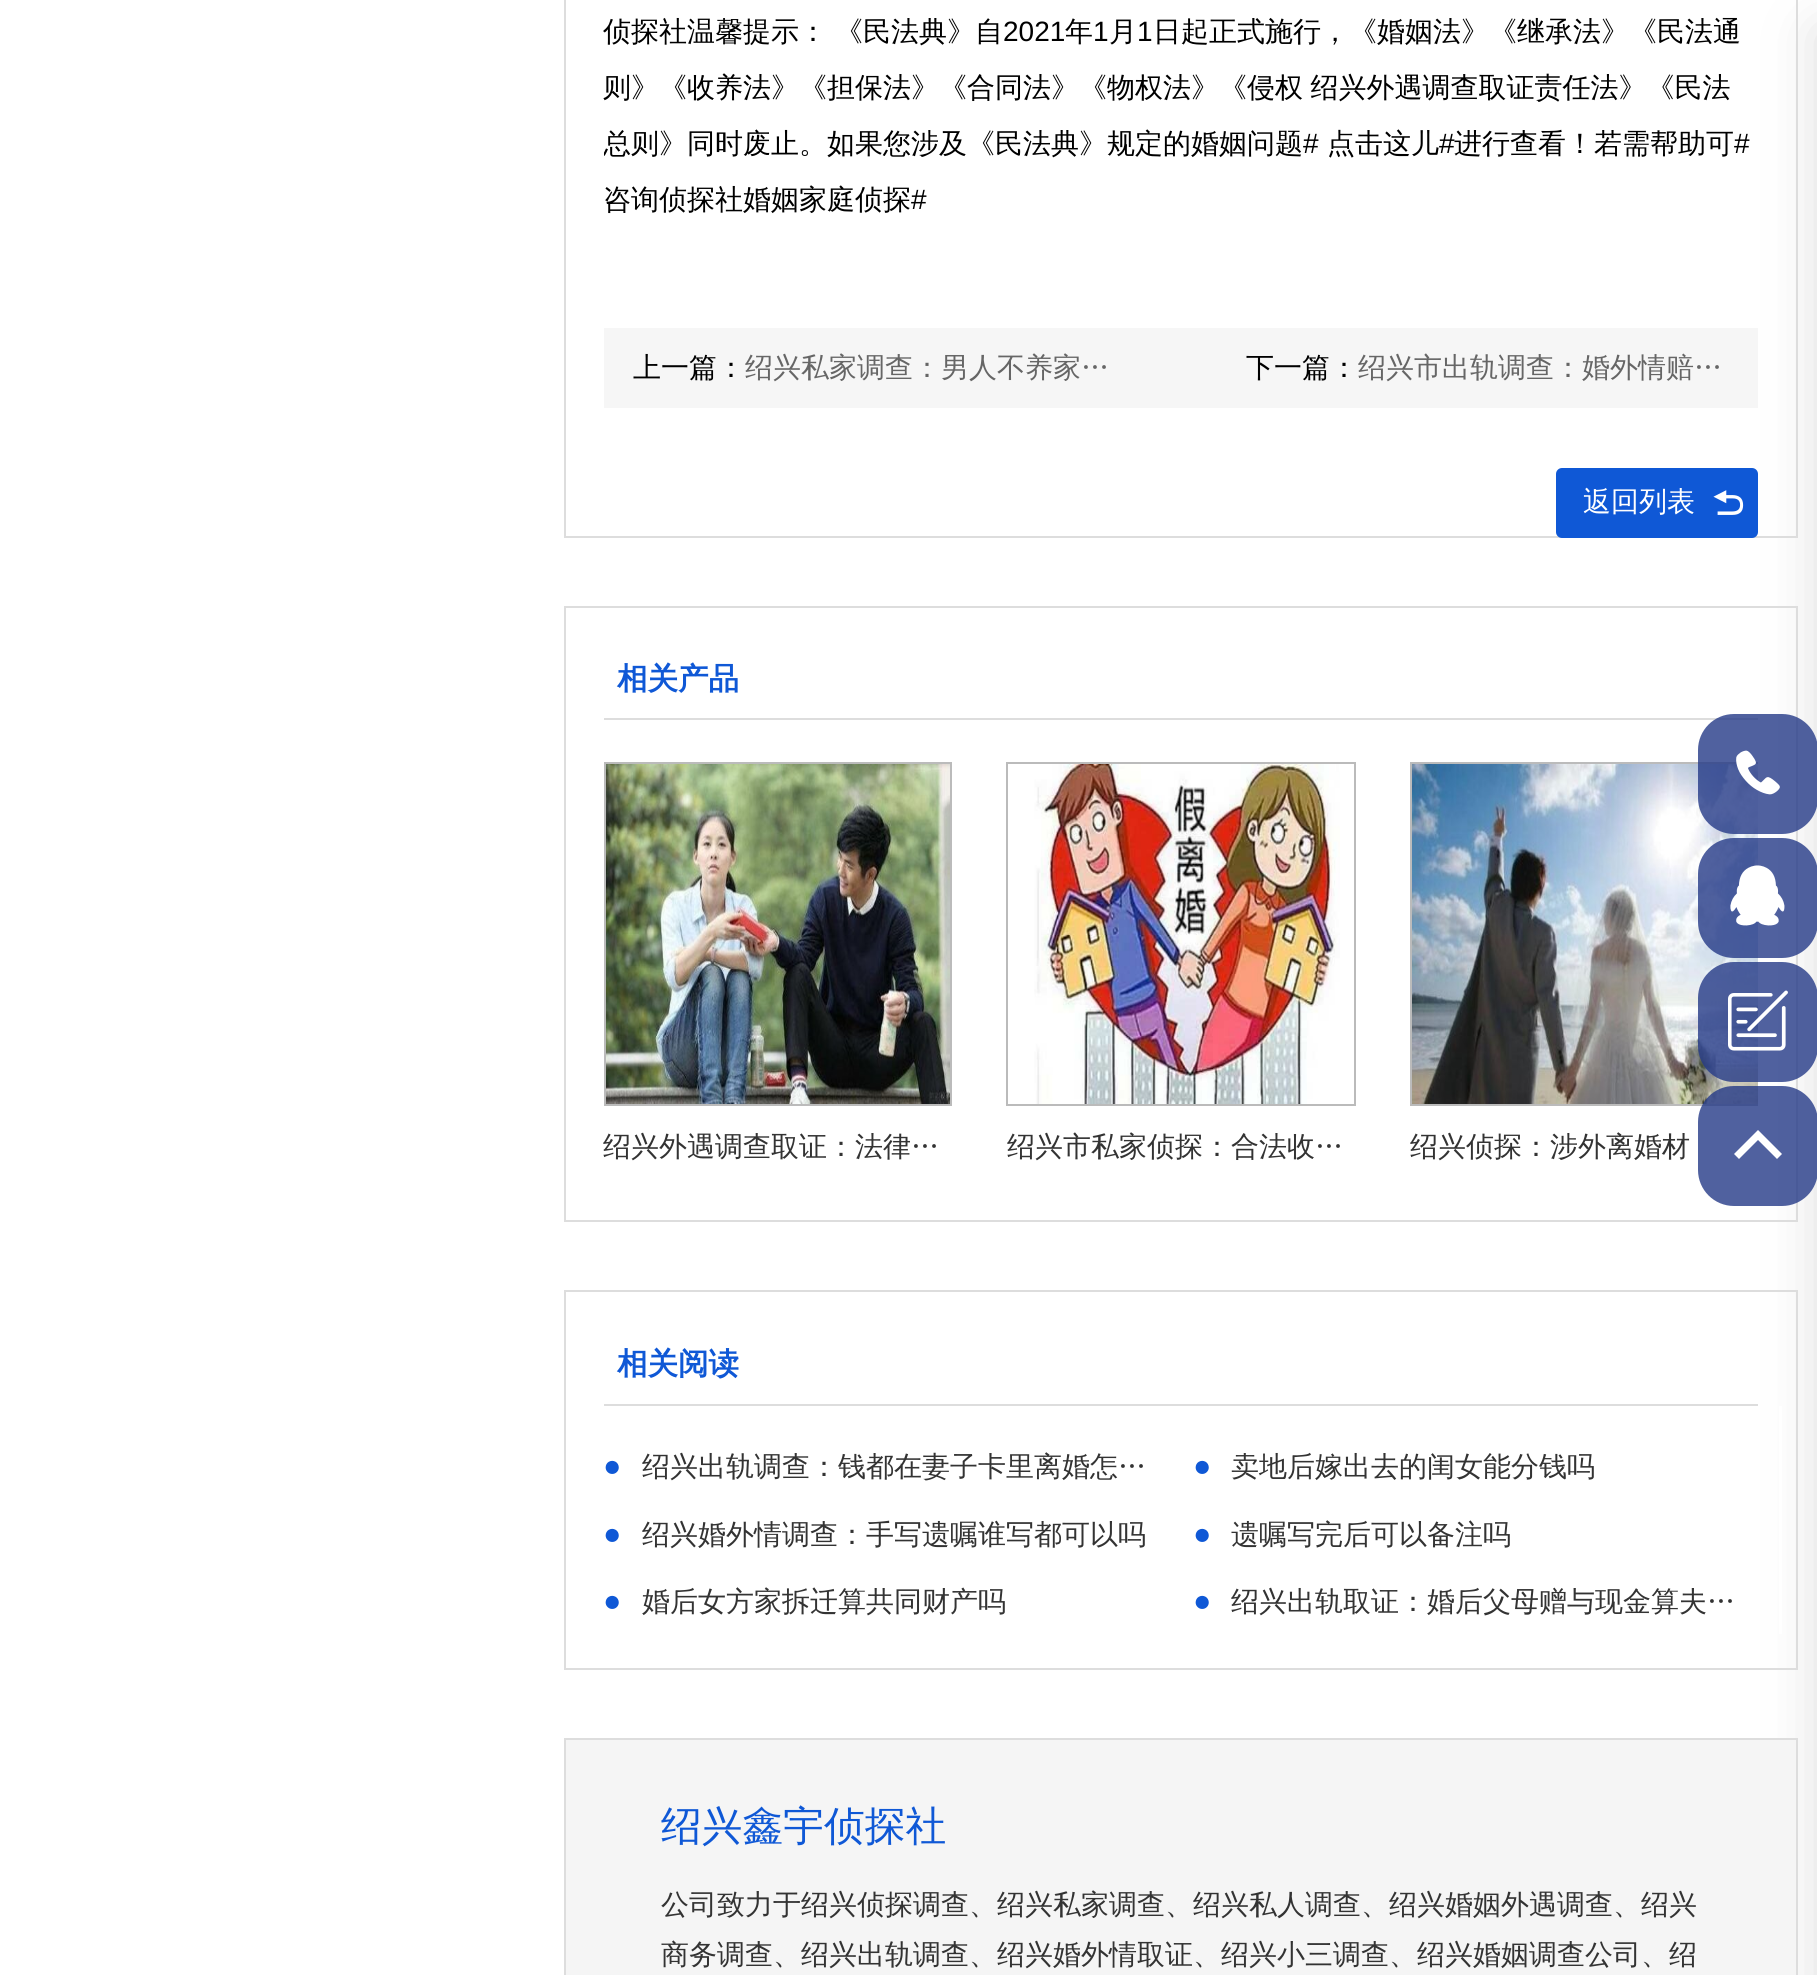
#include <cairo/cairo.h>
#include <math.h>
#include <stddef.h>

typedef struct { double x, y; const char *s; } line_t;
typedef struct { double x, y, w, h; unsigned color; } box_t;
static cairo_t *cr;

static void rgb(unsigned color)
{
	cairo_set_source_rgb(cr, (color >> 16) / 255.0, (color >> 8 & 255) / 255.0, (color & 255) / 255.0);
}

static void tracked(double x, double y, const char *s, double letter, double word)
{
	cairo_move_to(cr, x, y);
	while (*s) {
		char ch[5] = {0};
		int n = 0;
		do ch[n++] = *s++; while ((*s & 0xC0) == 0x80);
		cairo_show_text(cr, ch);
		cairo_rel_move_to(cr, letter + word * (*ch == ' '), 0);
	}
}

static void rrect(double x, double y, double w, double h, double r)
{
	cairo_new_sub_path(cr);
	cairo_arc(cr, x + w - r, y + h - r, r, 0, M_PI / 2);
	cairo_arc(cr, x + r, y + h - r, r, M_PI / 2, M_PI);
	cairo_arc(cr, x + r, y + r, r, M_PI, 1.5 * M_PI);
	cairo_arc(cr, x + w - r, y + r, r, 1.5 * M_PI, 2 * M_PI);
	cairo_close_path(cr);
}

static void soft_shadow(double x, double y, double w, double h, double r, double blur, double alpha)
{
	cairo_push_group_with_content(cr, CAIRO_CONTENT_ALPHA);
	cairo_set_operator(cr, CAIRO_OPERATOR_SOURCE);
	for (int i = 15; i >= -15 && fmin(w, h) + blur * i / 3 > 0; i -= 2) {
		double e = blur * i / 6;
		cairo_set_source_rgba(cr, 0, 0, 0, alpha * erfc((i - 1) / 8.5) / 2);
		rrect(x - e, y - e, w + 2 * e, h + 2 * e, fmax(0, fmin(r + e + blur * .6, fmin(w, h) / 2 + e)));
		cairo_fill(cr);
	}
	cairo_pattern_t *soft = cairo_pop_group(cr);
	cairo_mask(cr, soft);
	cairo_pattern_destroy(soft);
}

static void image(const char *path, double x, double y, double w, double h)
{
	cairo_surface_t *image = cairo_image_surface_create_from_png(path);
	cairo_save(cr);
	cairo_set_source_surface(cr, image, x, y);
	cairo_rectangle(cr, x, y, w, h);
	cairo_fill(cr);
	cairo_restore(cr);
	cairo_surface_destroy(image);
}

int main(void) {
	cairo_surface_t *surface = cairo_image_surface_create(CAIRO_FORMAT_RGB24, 1817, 1975);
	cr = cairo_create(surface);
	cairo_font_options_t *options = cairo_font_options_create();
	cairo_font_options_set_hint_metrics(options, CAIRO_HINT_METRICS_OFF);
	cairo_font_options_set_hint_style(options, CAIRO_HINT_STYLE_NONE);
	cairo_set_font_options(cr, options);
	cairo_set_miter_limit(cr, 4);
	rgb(0xffffff);
	cairo_paint(cr);
	rgb(0xa7a5a5);
	soft_shadow(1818, 30, 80, 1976, 0, 27, 0.38);
	{
		static const box_t items[] = {
			{1796, 0, 2, 538, 0xdddddd},
			{564, 536, 1234, 2, 0xdddddd},
			{564, 0, 2, 538, 0xdddddd},
			{604, 328, 1154, 80, 0xf6f6f6},
		};
		for (size_t i = 0; i < sizeof items / sizeof *items; i++) {
			rgb(items[i].color);
			cairo_rectangle(cr, items[i].x, items[i].y, items[i].w, items[i].h);
			cairo_fill(cr);
		}
	}
	rgb(0x0f58d6);
	rrect(1556, 468, 202, 70, 6);
	cairo_fill(cr);
	image("img/1.png", 1713, 490, 31, 25);
	cairo_rectangle(cr, 565, 607, 1232, 614);
	rgb(0xdddddd);
	cairo_stroke(cr);
	cairo_rectangle(cr, 604, 718, 1154, 2);
	cairo_fill(cr);
	cairo_rectangle(cr, 605, 763, 346, 342);
	rgb(0xbbbbbb);
	cairo_stroke(cr);
	image("img/2.png", 606, 764, 344, 340);
	cairo_rectangle(cr, 1007, 763, 348, 342);
	cairo_stroke(cr);
	image("img/3.png", 1034, 764, 306, 340);
	cairo_save(cr);
	cairo_rectangle(cr, 604, 762, 1154, 424);
	cairo_clip(cr);
	cairo_rectangle(cr, 1411, 763, 348, 342);
	cairo_stroke(cr);
	cairo_restore(cr);
	image("img/4.png", 1412, 764, 346, 340);
	cairo_rectangle(cr, 565, 1291, 1232, 378);
	rgb(0xdddddd);
	cairo_stroke(cr);
	cairo_rectangle(cr, 604, 1404, 1154, 2);
	cairo_fill(cr);
	rgb(0xffffff);
	cairo_rectangle(cr, 1779, 1406, 3, 228);
	cairo_fill(cr);
	rgb(0xf5f5f5);
	cairo_rectangle(cr, 565, 1739, 1232, 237);
	cairo_fill_preserve(cr);
	rgb(0xdddddd);
	cairo_stroke(cr);
	cairo_set_source_rgba(cr, 0.145, 0.227, 0.529, 0.8);
	rrect(1698, 714, 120, 120, 36);
	cairo_fill(cr);
	image("img/5.png", 1736, 750, 44, 45);
	rrect(1698, 838, 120, 120, 36);
	cairo_fill(cr);
	image("img/6.png", 1730, 865, 55, 61);
	rrect(1698, 962, 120, 120, 36);
	cairo_fill(cr);
	image("img/7.png", 1728, 990, 60, 61);
	rrect(1698, 1086, 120, 120, 36);
	cairo_fill(cr);
	rgb(0xffffff);
	cairo_new_path(cr);
	cairo_move_to(cr, 1777, 1159);
	cairo_line_to(cr, 1758, 1140);
	cairo_line_to(cr, 1739, 1159);
	cairo_line_to(cr, 1734, 1154);
	cairo_line_to(cr, 1758, 1130);
	cairo_line_to(cr, 1782, 1154);
	cairo_close_path(cr);
	cairo_fill(cr);
	cairo_select_font_face(cr, "WenQuanYi Zen Hei Medium", CAIRO_FONT_SLANT_NORMAL, CAIRO_FONT_WEIGHT_NORMAL);
	cairo_set_font_size(cr, 28);
	rgb(0x000000);
	cairo_move_to(cr, 603, 41);
	cairo_show_text(cr, "侦探社温馨提示：");
	cairo_move_to(cr, 835, 41);
	cairo_show_text(cr, "《民法典》自");
	cairo_select_font_face(cr, "Liberation Sans", CAIRO_FONT_SLANT_NORMAL, CAIRO_FONT_WEIGHT_NORMAL);
	cairo_move_to(cr, 1003, 41);
	cairo_show_text(cr, "2021");
	cairo_select_font_face(cr, "WenQuanYi Zen Hei Medium", CAIRO_FONT_SLANT_NORMAL, CAIRO_FONT_WEIGHT_NORMAL);
	cairo_move_to(cr, 1065, 41);
	cairo_show_text(cr, "年");
	cairo_select_font_face(cr, "Liberation Sans", CAIRO_FONT_SLANT_NORMAL, CAIRO_FONT_WEIGHT_NORMAL);
	cairo_move_to(cr, 1093, 41);
	cairo_show_text(cr, "1");
	cairo_select_font_face(cr, "WenQuanYi Zen Hei Medium", CAIRO_FONT_SLANT_NORMAL, CAIRO_FONT_WEIGHT_NORMAL);
	cairo_move_to(cr, 1109, 41);
	cairo_show_text(cr, "月");
	cairo_select_font_face(cr, "Liberation Sans", CAIRO_FONT_SLANT_NORMAL, CAIRO_FONT_WEIGHT_NORMAL);
	cairo_move_to(cr, 1137, 41);
	cairo_show_text(cr, "1");
	cairo_select_font_face(cr, "WenQuanYi Zen Hei Medium", CAIRO_FONT_SLANT_NORMAL, CAIRO_FONT_WEIGHT_NORMAL);
	cairo_move_to(cr, 1153, 41);
	cairo_show_text(cr, "日起正式施行，《婚姻法》《继承法》《民法通");
	tracked(603, 97, "则》《收养法》《担保法》《合同法》《物权法》《侵权 绍兴外遇调查取证责任法》《民法", 0, -1);
	cairo_save(cr);
	cairo_rectangle(cr, 604, 0, 1154, 228);
	cairo_clip(cr);
	cairo_move_to(cr, 603, 153);
	cairo_show_text(cr, "总则》同时废止。如果您涉及《民法典》规定的婚姻问题");
	cairo_restore(cr);
	cairo_select_font_face(cr, "Liberation Sans", CAIRO_FONT_SLANT_NORMAL, CAIRO_FONT_WEIGHT_NORMAL);
	cairo_move_to(cr, 1303, 153);
	cairo_show_text(cr, "#");
	cairo_select_font_face(cr, "WenQuanYi Zen Hei Medium", CAIRO_FONT_SLANT_NORMAL, CAIRO_FONT_WEIGHT_NORMAL);
	cairo_move_to(cr, 1327, 153);
	cairo_show_text(cr, "点击这儿");
	cairo_select_font_face(cr, "Liberation Sans", CAIRO_FONT_SLANT_NORMAL, CAIRO_FONT_WEIGHT_NORMAL);
	cairo_move_to(cr, 1439, 153);
	cairo_show_text(cr, "#");
	cairo_select_font_face(cr, "WenQuanYi Zen Hei Medium", CAIRO_FONT_SLANT_NORMAL, CAIRO_FONT_WEIGHT_NORMAL);
	cairo_move_to(cr, 1454, 153);
	cairo_show_text(cr, "进行查看！若需帮助可");
	cairo_select_font_face(cr, "Liberation Sans", CAIRO_FONT_SLANT_NORMAL, CAIRO_FONT_WEIGHT_NORMAL);
	cairo_move_to(cr, 1734, 153);
	cairo_show_text(cr, "#");
	cairo_select_font_face(cr, "WenQuanYi Zen Hei Medium", CAIRO_FONT_SLANT_NORMAL, CAIRO_FONT_WEIGHT_NORMAL);
	cairo_move_to(cr, 603, 209);
	cairo_show_text(cr, "咨询侦探社婚姻家庭侦探");
	cairo_select_font_face(cr, "Liberation Sans", CAIRO_FONT_SLANT_NORMAL, CAIRO_FONT_WEIGHT_NORMAL);
	cairo_move_to(cr, 911, 209);
	cairo_show_text(cr, "#");
	cairo_select_font_face(cr, "WenQuanYi Zen Hei Medium", CAIRO_FONT_SLANT_NORMAL, CAIRO_FONT_WEIGHT_NORMAL);
	cairo_move_to(cr, 633, 377);
	cairo_show_text(cr, "上一篇：");
	rgb(0x666666);
	cairo_move_to(cr, 745, 377);
	cairo_show_text(cr, "绍兴私家调查：男人不养家…");
	rgb(0x000000);
	cairo_move_to(cr, 1246, 377);
	cairo_show_text(cr, "下一篇：");
	rgb(0x666666);
	cairo_move_to(cr, 1358, 377);
	cairo_show_text(cr, "绍兴市出轨调查：婚外情赔…");
	rgb(0xffffff);
	cairo_move_to(cr, 1583, 511);
	cairo_show_text(cr, "返回列表");
	cairo_select_font_face(cr, "WenQuanYi Zen Hei", CAIRO_FONT_SLANT_NORMAL, CAIRO_FONT_WEIGHT_BOLD);
	cairo_set_font_size(cr, 30.5);
	rgb(0x0f58d6);
	cairo_move_to(cr, 617, 689);
	cairo_show_text(cr, "相关产品");
	cairo_select_font_face(cr, "WenQuanYi Zen Hei Medium", CAIRO_FONT_SLANT_NORMAL, CAIRO_FONT_WEIGHT_NORMAL);
	cairo_set_font_size(cr, 28);
	rgb(0x333333);
	{
		static const line_t items[] = {
			{603, 1156, "绍兴外遇调查取证：法律…"},
			{1007, 1156, "绍兴市私家侦探：合法收…"},
			{1410, 1156, "绍兴侦探：涉外离婚材"},
		};
		for (size_t i = 0; i < sizeof items / sizeof *items; i++) {
			cairo_move_to(cr, items[i].x, items[i].y);
			cairo_show_text(cr, items[i].s);
		}
	}
	cairo_select_font_face(cr, "WenQuanYi Zen Hei", CAIRO_FONT_SLANT_NORMAL, CAIRO_FONT_WEIGHT_BOLD);
	cairo_set_font_size(cr, 30.5);
	rgb(0x0f58d6);
	cairo_move_to(cr, 617, 1374);
	cairo_show_text(cr, "相关阅读");
	cairo_select_font_face(cr, "Liberation Sans", CAIRO_FONT_SLANT_NORMAL, CAIRO_FONT_WEIGHT_NORMAL);
	cairo_move_to(cr, 603, 1476);
	cairo_show_text(cr, "●");
	cairo_select_font_face(cr, "WenQuanYi Zen Hei Medium", CAIRO_FONT_SLANT_NORMAL, CAIRO_FONT_WEIGHT_NORMAL);
	cairo_set_font_size(cr, 28);
	rgb(0x333333);
	cairo_move_to(cr, 642, 1476);
	cairo_show_text(cr, "绍兴出轨调查：钱都在妻子卡里离婚怎…");
	cairo_select_font_face(cr, "Liberation Sans", CAIRO_FONT_SLANT_NORMAL, CAIRO_FONT_WEIGHT_NORMAL);
	cairo_set_font_size(cr, 30.5);
	rgb(0x0f58d6);
	cairo_move_to(cr, 1193, 1476);
	cairo_show_text(cr, "●");
	cairo_select_font_face(cr, "WenQuanYi Zen Hei Medium", CAIRO_FONT_SLANT_NORMAL, CAIRO_FONT_WEIGHT_NORMAL);
	cairo_set_font_size(cr, 28);
	rgb(0x333333);
	cairo_move_to(cr, 1231, 1476);
	cairo_show_text(cr, "卖地后嫁出去的闺女能分钱吗");
	cairo_select_font_face(cr, "Liberation Sans", CAIRO_FONT_SLANT_NORMAL, CAIRO_FONT_WEIGHT_NORMAL);
	cairo_set_font_size(cr, 30.5);
	rgb(0x0f58d6);
	cairo_move_to(cr, 603, 1544);
	cairo_show_text(cr, "●");
	cairo_select_font_face(cr, "WenQuanYi Zen Hei Medium", CAIRO_FONT_SLANT_NORMAL, CAIRO_FONT_WEIGHT_NORMAL);
	cairo_set_font_size(cr, 28);
	rgb(0x333333);
	cairo_move_to(cr, 642, 1544);
	cairo_show_text(cr, "绍兴婚外情调查：手写遗嘱谁写都可以吗");
	cairo_select_font_face(cr, "Liberation Sans", CAIRO_FONT_SLANT_NORMAL, CAIRO_FONT_WEIGHT_NORMAL);
	cairo_set_font_size(cr, 30.5);
	rgb(0x0f58d6);
	cairo_move_to(cr, 1193, 1544);
	cairo_show_text(cr, "●");
	cairo_select_font_face(cr, "WenQuanYi Zen Hei Medium", CAIRO_FONT_SLANT_NORMAL, CAIRO_FONT_WEIGHT_NORMAL);
	cairo_set_font_size(cr, 28);
	rgb(0x333333);
	cairo_move_to(cr, 1231, 1544);
	cairo_show_text(cr, "遗嘱写完后可以备注吗");
	cairo_select_font_face(cr, "Liberation Sans", CAIRO_FONT_SLANT_NORMAL, CAIRO_FONT_WEIGHT_NORMAL);
	cairo_set_font_size(cr, 30.5);
	rgb(0x0f58d6);
	cairo_move_to(cr, 603, 1611);
	cairo_show_text(cr, "●");
	cairo_select_font_face(cr, "WenQuanYi Zen Hei Medium", CAIRO_FONT_SLANT_NORMAL, CAIRO_FONT_WEIGHT_NORMAL);
	cairo_set_font_size(cr, 28);
	rgb(0x333333);
	cairo_move_to(cr, 642, 1611);
	cairo_show_text(cr, "婚后女方家拆迁算共同财产吗");
	cairo_select_font_face(cr, "Liberation Sans", CAIRO_FONT_SLANT_NORMAL, CAIRO_FONT_WEIGHT_NORMAL);
	cairo_set_font_size(cr, 30.5);
	rgb(0x0f58d6);
	cairo_move_to(cr, 1193, 1611);
	cairo_show_text(cr, "●");
	cairo_select_font_face(cr, "WenQuanYi Zen Hei Medium", CAIRO_FONT_SLANT_NORMAL, CAIRO_FONT_WEIGHT_NORMAL);
	cairo_set_font_size(cr, 28);
	rgb(0x333333);
	cairo_move_to(cr, 1231, 1611);
	cairo_show_text(cr, "绍兴出轨取证：婚后父母赠与现金算夫…");
	cairo_set_font_size(cr, 40.75);
	rgb(0x0f58d6);
	cairo_move_to(cr, 661, 1840);
	cairo_show_text(cr, "绍兴鑫宇侦探社");
	cairo_set_font_size(cr, 28);
	rgb(0x333333);
	cairo_move_to(cr, 661, 1914);
	cairo_show_text(cr, "公司致力于绍兴侦探调查、绍兴私家调查、绍兴私人调查、绍兴婚姻外遇调查、绍兴");
	cairo_move_to(cr, 661, 1964);
	cairo_show_text(cr, "商务调查、绍兴出轨调查、绍兴婚外情取证、绍兴小三调查、绍兴婚姻调查公司、绍");
	cairo_surface_write_to_png(surface, "page.png");
	cairo_font_options_destroy(options);
	cairo_destroy(cr);
	cairo_surface_destroy(surface);
	return 0;
}
